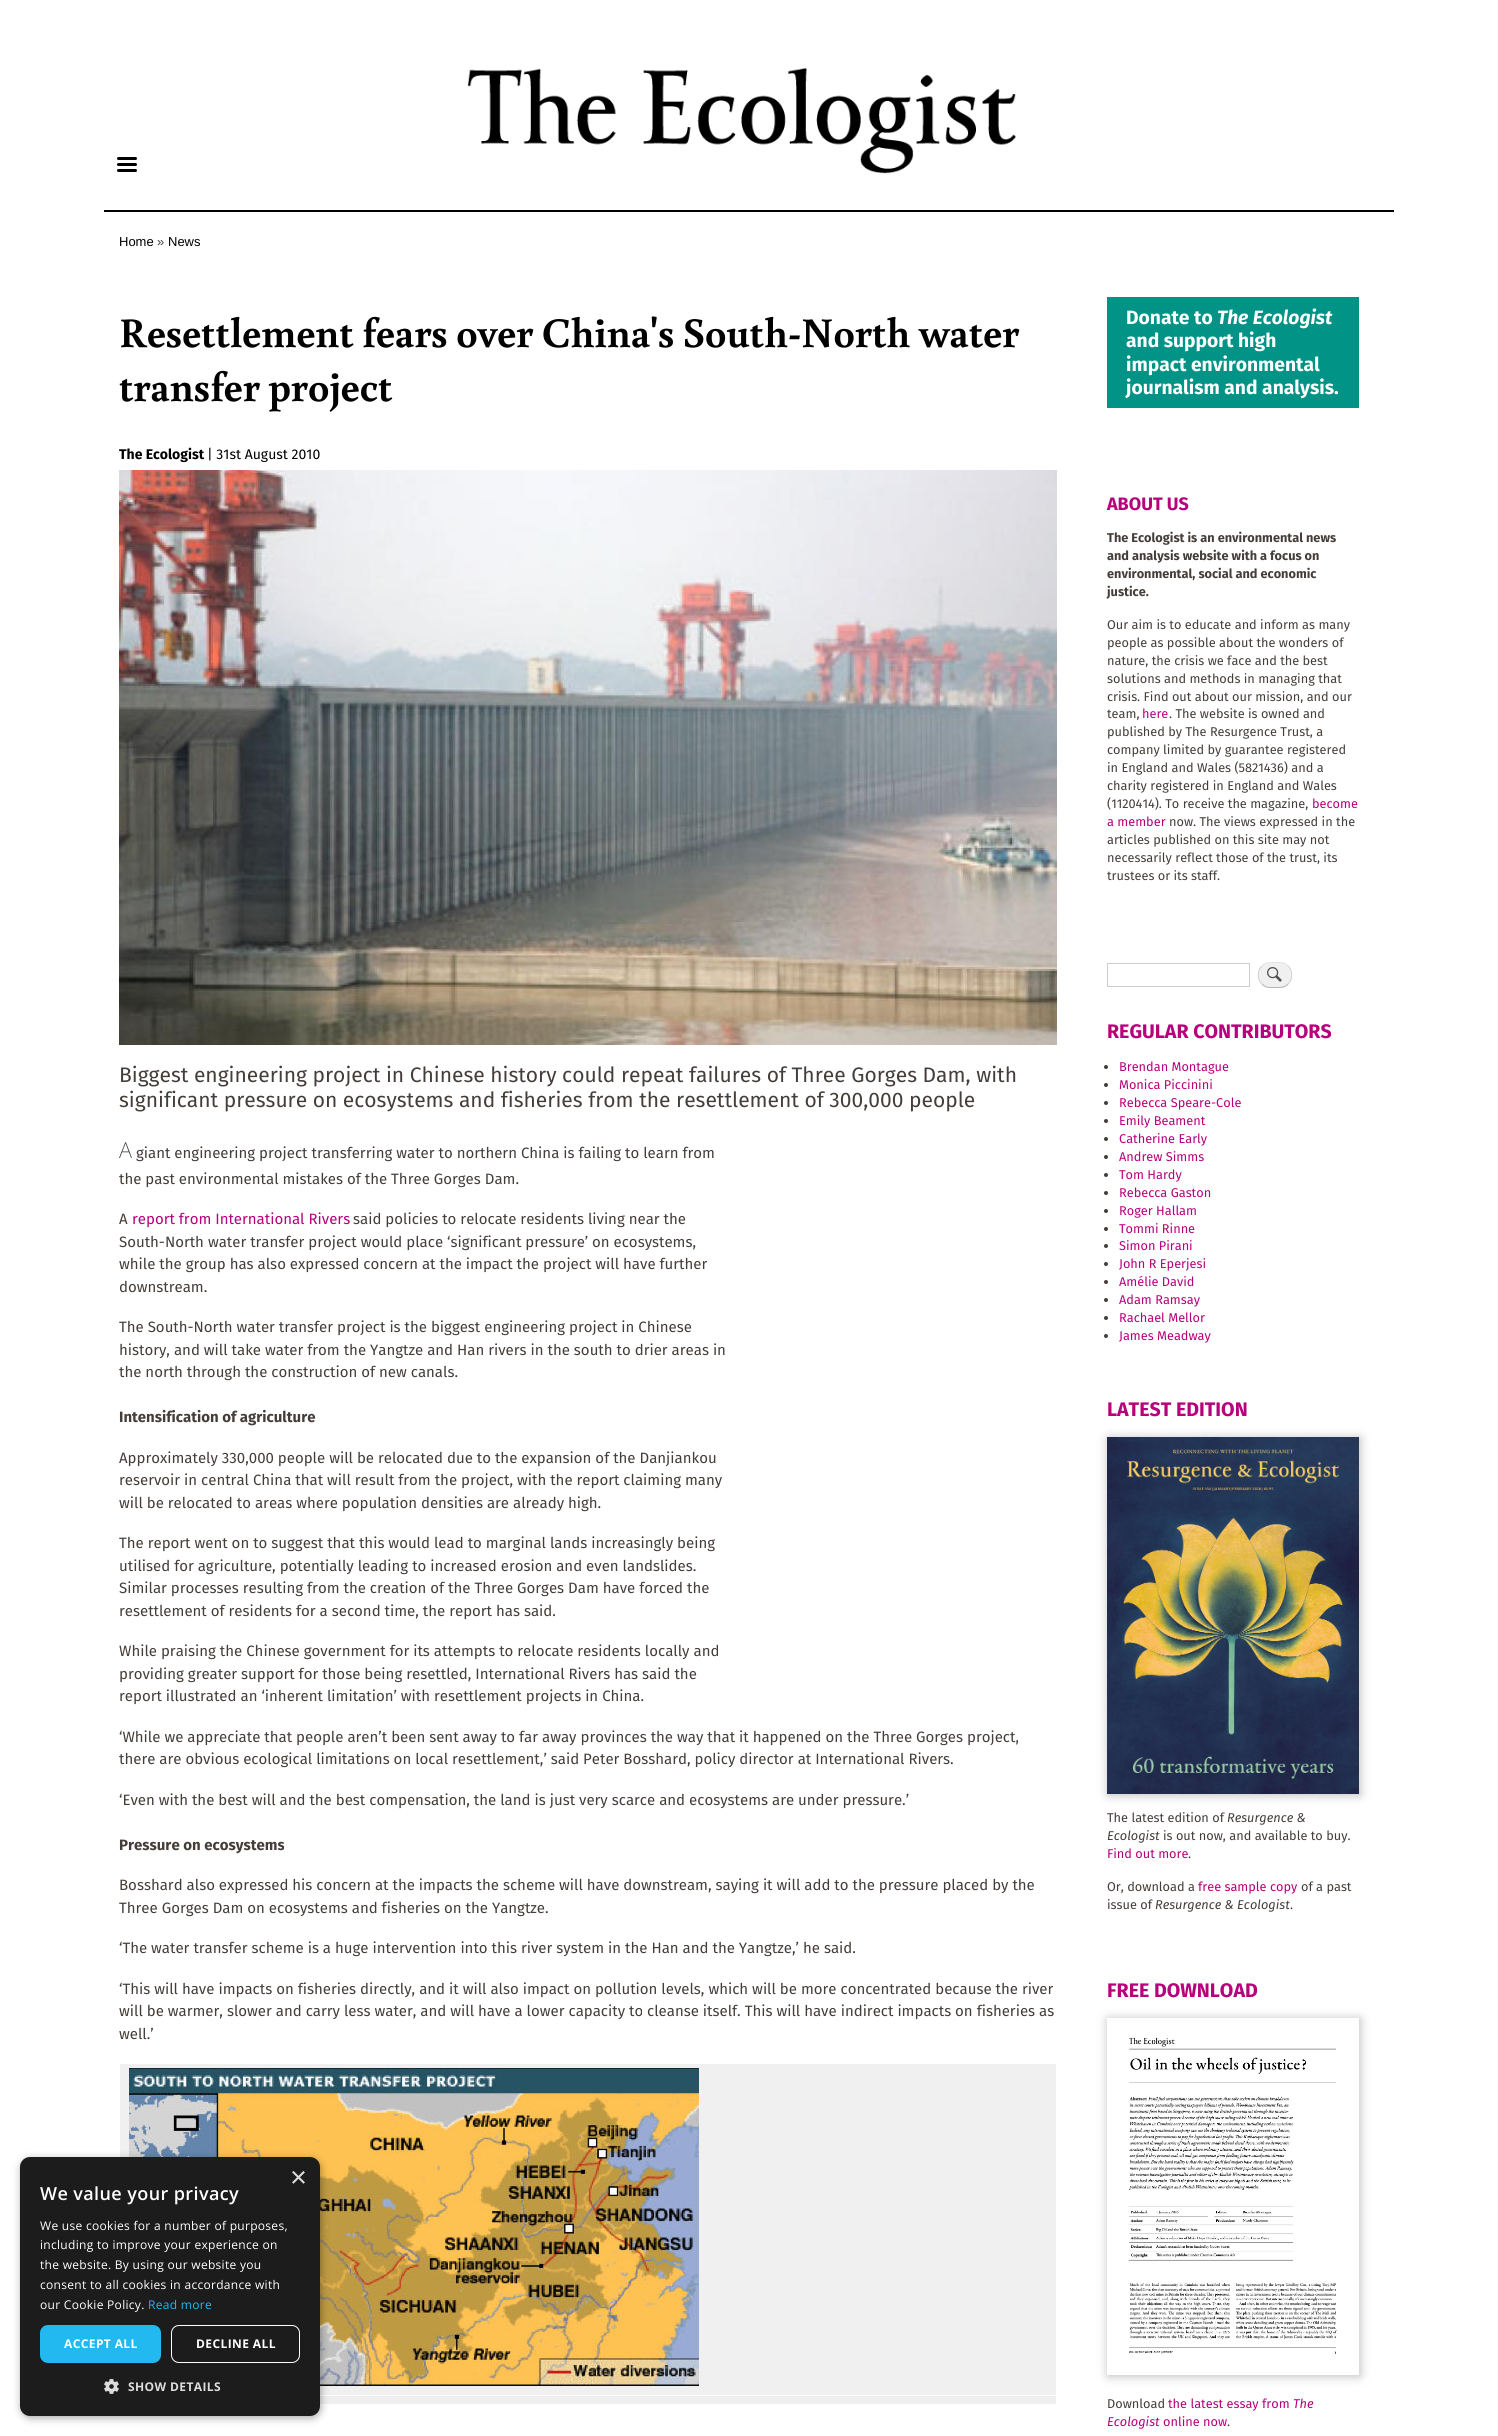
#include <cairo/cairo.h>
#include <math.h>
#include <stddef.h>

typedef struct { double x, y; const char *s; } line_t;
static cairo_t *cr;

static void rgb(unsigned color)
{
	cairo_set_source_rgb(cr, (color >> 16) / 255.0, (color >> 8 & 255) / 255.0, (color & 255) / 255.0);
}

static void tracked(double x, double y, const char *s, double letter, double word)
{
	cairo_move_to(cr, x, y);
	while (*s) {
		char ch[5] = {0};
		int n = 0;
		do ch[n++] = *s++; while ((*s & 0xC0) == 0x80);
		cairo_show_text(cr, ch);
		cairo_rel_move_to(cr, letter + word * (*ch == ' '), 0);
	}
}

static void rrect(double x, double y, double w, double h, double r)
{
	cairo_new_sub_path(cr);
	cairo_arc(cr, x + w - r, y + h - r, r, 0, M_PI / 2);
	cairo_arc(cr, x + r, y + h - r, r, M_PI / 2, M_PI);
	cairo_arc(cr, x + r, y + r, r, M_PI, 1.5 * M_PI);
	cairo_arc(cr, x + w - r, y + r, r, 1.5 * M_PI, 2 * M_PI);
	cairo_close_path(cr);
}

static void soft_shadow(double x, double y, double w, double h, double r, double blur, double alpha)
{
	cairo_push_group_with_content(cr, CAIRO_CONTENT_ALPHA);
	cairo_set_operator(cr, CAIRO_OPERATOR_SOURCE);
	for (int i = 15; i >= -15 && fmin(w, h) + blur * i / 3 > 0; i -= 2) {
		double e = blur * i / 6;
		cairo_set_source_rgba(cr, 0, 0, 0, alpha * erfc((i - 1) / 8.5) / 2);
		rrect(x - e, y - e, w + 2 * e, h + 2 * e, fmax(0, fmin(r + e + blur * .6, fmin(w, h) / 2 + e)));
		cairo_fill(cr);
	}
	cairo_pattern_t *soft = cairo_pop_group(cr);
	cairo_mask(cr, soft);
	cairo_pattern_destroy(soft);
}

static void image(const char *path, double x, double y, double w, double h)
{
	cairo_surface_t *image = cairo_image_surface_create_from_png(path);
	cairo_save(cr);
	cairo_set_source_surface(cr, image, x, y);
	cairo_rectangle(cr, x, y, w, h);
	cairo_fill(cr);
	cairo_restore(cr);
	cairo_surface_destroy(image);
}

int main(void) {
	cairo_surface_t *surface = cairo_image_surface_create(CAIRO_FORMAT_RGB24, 1498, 2436);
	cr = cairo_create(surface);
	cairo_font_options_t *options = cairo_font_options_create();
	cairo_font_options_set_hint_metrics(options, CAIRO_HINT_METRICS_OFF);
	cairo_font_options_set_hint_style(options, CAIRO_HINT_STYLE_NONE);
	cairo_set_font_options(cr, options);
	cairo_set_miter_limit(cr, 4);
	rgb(0xffffff);
	cairo_paint(cr);
	rgb(0x000000);
	rrect(117, 157, 20, 3, 1.5);
	cairo_fill(cr);
	rrect(117, 163, 20, 3, 1.5);
	cairo_fill(cr);
	rrect(117, 169, 20, 3, 1.5);
	cairo_fill(cr);
	image("img/1.png", 467, 67, 549, 107);
	cairo_rectangle(cr, 104, 210, 1290, 2);
	cairo_fill(cr);
	image("img/2.png", 119, 470, 938, 575);
	rgb(0xf0f0f0);
	cairo_rectangle(cr, 120, 2064, 936, 331);
	cairo_fill(cr);
	image("img/3.png", 129, 2068, 570, 318);
	rgb(0xefefef);
	cairo_rectangle(cr, 320, 2396, 736, 8);
	cairo_fill(cr);
	rgb(0x019386);
	cairo_rectangle(cr, 1107, 297, 252, 111);
	cairo_fill(cr);
	cairo_rectangle(cr, 1107.5, 963.5, 142, 23);
	rgb(0xcccccc);
	cairo_set_line_width(cr, 1);
	cairo_stroke(cr);
	rgb(0xf0f0f0);
	rrect(1258, 962, 34, 26, 12);
	cairo_fill(cr);
	image("img/4.png", 1267, 967, 15, 15);
	cairo_new_path(cr);
	cairo_move_to(cr, 1262, 966);
	cairo_curve_to(cr, 1265.5, 962, 1270, 962.5, 1275, 962.5);
	cairo_curve_to(cr, 1280, 962.5, 1284.5, 962, 1288, 966);
	rgb(0xe4e4e4);
	cairo_stroke(cr);
	cairo_new_path(cr);
	cairo_move_to(cr, 1288, 966);
	cairo_curve_to(cr, 1293, 970.5, 1293, 979.5, 1288, 984);
	rgb(0xd2d2d2);
	cairo_stroke(cr);
	cairo_new_path(cr);
	cairo_move_to(cr, 1288, 984);
	cairo_curve_to(cr, 1284.5, 988, 1280, 987.5, 1275, 987.5);
	cairo_curve_to(cr, 1270, 987.5, 1265.5, 988, 1262, 984);
	rgb(0xb4b4b4);
	cairo_stroke(cr);
	cairo_new_path(cr);
	cairo_move_to(cr, 1262, 984);
	cairo_curve_to(cr, 1257, 979.5, 1257, 970.5, 1262, 966);
	rgb(0xd2d2d2);
	cairo_stroke(cr);
	rgb(0x443d39);
	cairo_arc(cr, 1106, 1067, 2, 0, 2 * M_PI);
	cairo_fill(cr);
	cairo_arc(cr, 1106, 1085, 2, 0, 2 * M_PI);
	cairo_fill(cr);
	cairo_arc(cr, 1106, 1103, 2, 0, 2 * M_PI);
	cairo_fill(cr);
	cairo_arc(cr, 1106, 1121, 2, 0, 2 * M_PI);
	cairo_fill(cr);
	cairo_arc(cr, 1106, 1139, 2, 0, 2 * M_PI);
	cairo_fill(cr);
	cairo_arc(cr, 1106, 1157, 2, 0, 2 * M_PI);
	cairo_fill(cr);
	cairo_arc(cr, 1106, 1175, 2, 0, 2 * M_PI);
	cairo_fill(cr);
	cairo_arc(cr, 1106, 1193, 2, 0, 2 * M_PI);
	cairo_fill(cr);
	cairo_arc(cr, 1106, 1211, 2, 0, 2 * M_PI);
	cairo_fill(cr);
	cairo_arc(cr, 1106, 1229, 2, 0, 2 * M_PI);
	cairo_fill(cr);
	cairo_arc(cr, 1106, 1246, 2, 0, 2 * M_PI);
	cairo_fill(cr);
	cairo_arc(cr, 1106, 1264, 2, 0, 2 * M_PI);
	cairo_fill(cr);
	cairo_arc(cr, 1106, 1282, 2, 0, 2 * M_PI);
	cairo_fill(cr);
	cairo_arc(cr, 1106, 1300, 2, 0, 2 * M_PI);
	cairo_fill(cr);
	cairo_arc(cr, 1106, 1318, 2, 0, 2 * M_PI);
	cairo_fill(cr);
	cairo_arc(cr, 1106, 1336, 2, 0, 2 * M_PI);
	cairo_fill(cr);
	rgb(0xbbbbbb);
	soft_shadow(1108, 1438, 252, 357, 0, 5, 1);
	image("img/5.png", 1107, 1437, 252, 357);
	cairo_save(cr);
	cairo_set_fill_rule(cr, CAIRO_FILL_RULE_EVEN_ODD);
	cairo_new_path(cr);
	cairo_move_to(cr, 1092, 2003);
	cairo_line_to(cr, 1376, 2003);
	cairo_line_to(cr, 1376, 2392);
	cairo_line_to(cr, 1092, 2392);
	cairo_close_path(cr);
	cairo_move_to(cr, 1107, 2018);
	cairo_line_to(cr, 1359, 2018);
	cairo_line_to(cr, 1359, 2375);
	cairo_line_to(cr, 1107, 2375);
	cairo_close_path(cr);
	cairo_clip(cr);
	soft_shadow(1108, 2019, 252, 357, 0, 5, 1);
	cairo_restore(cr);
	image("img/6.png", 1128, 2037, 209, 317);
	rgb(0x000000);
	soft_shadow(21, 2159, 300, 259, 10, 4, 0.35);
	rgb(0x1c1c1c);
	rrect(20, 2157, 300, 259, 10);
	cairo_fill(cr);
	rgb(0x22b8f0);
	rrect(40, 2325, 121, 38, 8);
	cairo_fill(cr);
	rrect(171.5, 2325.5, 128, 37, 7.5);
	rgb(0xffffff);
	cairo_stroke(cr);
	image("img/7.png", 104, 2379, 15, 15);
	cairo_select_font_face(cr, "Liberation Sans", CAIRO_FONT_SLANT_NORMAL, CAIRO_FONT_WEIGHT_NORMAL);
	cairo_set_font_size(cr, 13);
	rgb(0x000000);
	cairo_move_to(cr, 119, 246);
	cairo_show_text(cr, "Home");
	rgb(0x443d39);
	cairo_move_to(cr, 157, 246);
	cairo_show_text(cr, "»");
	rgb(0x000000);
	cairo_move_to(cr, 168, 246);
	cairo_show_text(cr, "News");
	cairo_select_font_face(cr, "Buenard", CAIRO_FONT_SLANT_NORMAL, CAIRO_FONT_WEIGHT_BOLD);
	cairo_set_font_size(cr, 42);
	cairo_move_to(cr, 119, 347);
	cairo_show_text(cr, "Resettlement fears over China's South-North water");
	cairo_move_to(cr, 119, 401);
	cairo_show_text(cr, "transfer project");
	cairo_select_font_face(cr, "Fira Sans", CAIRO_FONT_SLANT_NORMAL, CAIRO_FONT_WEIGHT_BOLD);
	cairo_set_font_size(cr, 14);
	cairo_move_to(cr, 119, 459);
	cairo_show_text(cr, "The Ecologist");
	cairo_select_font_face(cr, "Fira Sans", CAIRO_FONT_SLANT_NORMAL, CAIRO_FONT_WEIGHT_NORMAL);
	cairo_move_to(cr, 207, 459);
	cairo_show_text(cr, "| 31st August 2010");
	cairo_set_font_size(cr, 21);
	rgb(0x443d39);
	cairo_move_to(cr, 119, 1082);
	cairo_show_text(cr, "Biggest engineering project in Chinese history could repeat failures of Three Gorges Dam, with");
	cairo_move_to(cr, 119, 1107);
	cairo_show_text(cr, "significant pressure on ecosystems and fisheries from the resettlement of 300,000 people");
	cairo_select_font_face(cr, "Noto Sans ExtraLight", CAIRO_FONT_SLANT_NORMAL, CAIRO_FONT_WEIGHT_NORMAL);
	cairo_set_font_size(cr, 22);
	cairo_move_to(cr, 119, 1158);
	cairo_show_text(cr, "A");
	cairo_select_font_face(cr, "Fira Sans", CAIRO_FONT_SLANT_NORMAL, CAIRO_FONT_WEIGHT_NORMAL);
	cairo_set_font_size(cr, 15);
	{
		static const line_t items[] = {
			{136, 1158, "giant engineering project transferring water to northern China is failing to learn from"},
			{119, 1184, "the past environmental mistakes of the Three Gorges Dam."},
			{119, 1224, "A"},
		};
		for (size_t i = 0; i < sizeof items / sizeof *items; i++) {
			cairo_move_to(cr, items[i].x, items[i].y);
			cairo_show_text(cr, items[i].s);
		}
	}
	rgb(0xb7007b);
	cairo_move_to(cr, 132, 1224);
	cairo_show_text(cr, "report from International Rivers");
	rgb(0x443d39);
	{
		static const line_t items[] = {
			{353, 1224, "said policies to relocate residents living near the"},
			{119, 1247, "South-North water transfer project would place ‘significant pressure’"},
			{592, 1247, "on ecosystems,"},
			{119, 1269, "while the group has also expressed concern at the impact the project will have further"},
			{119, 1292, "downstream."},
			{119, 1332, "The South-North water transfer project is the biggest engineering project in Chinese"},
			{119, 1355, "history, and will take water from the Yangtze and Han rivers in the south to drier areas in"},
			{119, 1377, "the north through the construction of new canals."},
		};
		for (size_t i = 0; i < sizeof items / sizeof *items; i++) {
			cairo_move_to(cr, items[i].x, items[i].y);
			cairo_show_text(cr, items[i].s);
		}
	}
	cairo_select_font_face(cr, "Fira Sans", CAIRO_FONT_SLANT_NORMAL, CAIRO_FONT_WEIGHT_BOLD);
	cairo_move_to(cr, 119, 1422);
	cairo_show_text(cr, "Intensification of agriculture");
	cairo_select_font_face(cr, "Fira Sans", CAIRO_FONT_SLANT_NORMAL, CAIRO_FONT_WEIGHT_NORMAL);
	{
		static const line_t items[] = {
			{119, 1463, "Approximately 330,000 people will be relocated due to the expansion of the Danjiankou"},
			{119, 1485, "reservoir in central China that will result from the project, with the report claiming many"},
			{119, 1508, "will be relocated to areas where population densities are already high."},
			{119, 1548, "The report went on to suggest that this would lead to marginal lands increasingly being"},
			{119, 1571, "utilised for agriculture, potentially leading to increased erosion and even landslides."},
			{119, 1593, "Similar processes resulting from the creation of the Three Gorges Dam have forced the"},
			{119, 1616, "resettlement of residents for a second time, the report has said."},
			{119, 1656, "While praising the Chinese government for its attempts to relocate residents locally and"},
			{119, 1679, "providing greater support for those being resettled, International Rivers has said the"},
			{119, 1701, "report illustrated an ‘inherent limitation’ with resettlement projects in China."},
			{119, 1742, "‘While we appreciate that people aren’t been sent away to far away provinces the way that it happened on the Three Gorges project,"},
			{119, 1764, "there are obvious ecological limitations on local resettlement,’ said Peter Bosshard, policy director at International Rivers."},
			{119, 1805, "‘Even with the best will and the best compensation, the land is just very scarce and ecosystems are under pressure.’"},
		};
		for (size_t i = 0; i < sizeof items / sizeof *items; i++) {
			cairo_move_to(cr, items[i].x, items[i].y);
			cairo_show_text(cr, items[i].s);
		}
	}
	cairo_select_font_face(cr, "Fira Sans", CAIRO_FONT_SLANT_NORMAL, CAIRO_FONT_WEIGHT_BOLD);
	cairo_move_to(cr, 119, 1850);
	cairo_show_text(cr, "Pressure on ecosystems");
	cairo_select_font_face(cr, "Fira Sans", CAIRO_FONT_SLANT_NORMAL, CAIRO_FONT_WEIGHT_NORMAL);
	{
		static const line_t items[] = {
			{119, 1890, "Bosshard also expressed his concern at the impacts the scheme will have downstream, saying it will add to the pressure placed by the"},
			{119, 1913, "Three Gorges Dam on ecosystems and fisheries on the Yangtze."},
			{119, 1953, "‘The water transfer scheme is a huge intervention into this river system in the Han and the Yangtze,’ he said."},
			{119, 1994, "‘This will have impacts on fisheries directly, and it will also impact on pollution levels, which will be more concentrated because the river"},
			{119, 2016, "will be warmer, slower and carry less water, and will have a lower capacity to"},
			{647, 2016, "cleanse itself. This will have indirect impacts on fisheries as"},
			{119, 2039, "well.’"},
		};
		for (size_t i = 0; i < sizeof items / sizeof *items; i++) {
			cairo_move_to(cr, items[i].x, items[i].y);
			cairo_show_text(cr, items[i].s);
		}
	}
	cairo_select_font_face(cr, "Fira Sans", CAIRO_FONT_SLANT_NORMAL, CAIRO_FONT_WEIGHT_BOLD);
	cairo_set_font_size(cr, 19.25);
	rgb(0xffffff);
	cairo_move_to(cr, 1126, 324);
	cairo_show_text(cr, "Donate to");
	cairo_select_font_face(cr, "Fira Sans", CAIRO_FONT_SLANT_ITALIC, CAIRO_FONT_WEIGHT_BOLD);
	cairo_move_to(cr, 1217, 324);
	cairo_show_text(cr, "The Ecologist");
	cairo_select_font_face(cr, "Fira Sans", CAIRO_FONT_SLANT_NORMAL, CAIRO_FONT_WEIGHT_BOLD);
	{
		static const line_t items[] = {
			{1126, 347, "and support high"},
			{1126, 371, "impact environmental"},
			{1126, 394, "journalism and analysis."},
		};
		for (size_t i = 0; i < sizeof items / sizeof *items; i++) {
			cairo_move_to(cr, items[i].x, items[i].y);
			cairo_show_text(cr, items[i].s);
		}
	}
	cairo_set_font_size(cr, 18);
	rgb(0xb7007b);
	cairo_move_to(cr, 1107, 510);
	cairo_show_text(cr, "ABOUT US");
	cairo_set_font_size(cr, 12.75);
	rgb(0x443d39);
	{
		static const line_t items[] = {
			{1107, 542, "The Ecologist is an environmental news"},
			{1107, 560, "and analysis website with a focus on"},
			{1107, 578, "environmental, social and economic"},
			{1107, 596, "justice."},
		};
		for (size_t i = 0; i < sizeof items / sizeof *items; i++) {
			cairo_move_to(cr, items[i].x, items[i].y);
			cairo_show_text(cr, items[i].s);
		}
	}
	cairo_select_font_face(cr, "Fira Sans", CAIRO_FONT_SLANT_NORMAL, CAIRO_FONT_WEIGHT_NORMAL);
	{
		static const line_t items[] = {
			{1107, 629, "Our aim is to educate and inform as many"},
			{1107, 647, "people as possible about the wonders of"},
			{1107, 665, "nature, the crisis we face and the best"},
			{1107, 683, "solutions and methods in managing that"},
			{1107, 701, "crisis. Find out about our mission, and our"},
			{1107, 718, "team,"},
		};
		for (size_t i = 0; i < sizeof items / sizeof *items; i++) {
			cairo_move_to(cr, items[i].x, items[i].y);
			cairo_show_text(cr, items[i].s);
		}
	}
	rgb(0xb7007b);
	cairo_move_to(cr, 1142, 718);
	cairo_show_text(cr, "here");
	rgb(0x443d39);
	{
		static const line_t items[] = {
			{1169, 718, ". The website is owned and"},
			{1107, 736, "published by The Resurgence Trust, a"},
			{1107, 754, "company limited by guarantee registered"},
			{1107, 772, "in England and Wales (5821436) and a"},
			{1107, 790, "charity registered in England and Wales"},
			{1107, 808, "(1120414). To receive the magazine,"},
		};
		for (size_t i = 0; i < sizeof items / sizeof *items; i++) {
			cairo_move_to(cr, items[i].x, items[i].y);
			cairo_show_text(cr, items[i].s);
		}
	}
	rgb(0xb7007b);
	cairo_move_to(cr, 1312, 808);
	cairo_show_text(cr, "become");
	cairo_move_to(cr, 1107, 826);
	cairo_show_text(cr, "a member");
	rgb(0x443d39);
	{
		static const line_t items[] = {
			{1169, 826, "now. The views expressed in the"},
			{1107, 844, "articles published on this site may not"},
			{1107, 862, "necessarily reflect those of the trust, its"},
			{1107, 880, "trustees or its staff."},
		};
		for (size_t i = 0; i < sizeof items / sizeof *items; i++) {
			cairo_move_to(cr, items[i].x, items[i].y);
			cairo_show_text(cr, items[i].s);
		}
	}
	cairo_select_font_face(cr, "Fira Sans", CAIRO_FONT_SLANT_NORMAL, CAIRO_FONT_WEIGHT_BOLD);
	cairo_set_font_size(cr, 19.6);
	rgb(0xb7007b);
	cairo_move_to(cr, 1107, 1038);
	cairo_show_text(cr, "REGULAR CONTRIBUTORS");
	cairo_select_font_face(cr, "Fira Sans", CAIRO_FONT_SLANT_NORMAL, CAIRO_FONT_WEIGHT_NORMAL);
	cairo_set_font_size(cr, 12.75);
	{
		static const line_t items[] = {
			{1119, 1071, "Brendan Montague"},
			{1119, 1089, "Monica Piccinini"},
			{1119, 1107, "Rebecca Speare-Cole"},
			{1119, 1125, "Emily Beament"},
			{1119, 1143, "Catherine Early"},
			{1119, 1161, "Andrew Simms"},
			{1119, 1179, "Tom Hardy"},
			{1119, 1197, "Rebecca Gaston"},
			{1119, 1215, "Roger Hallam"},
			{1119, 1233, "Tommi Rinne"},
			{1119, 1250, "Simon Pirani"},
			{1119, 1268, "John R Eperjesi"},
			{1119, 1286, "Amélie David"},
			{1119, 1304, "Adam Ramsay"},
			{1119, 1322, "Rachael Mellor"},
			{1119, 1340, "James Meadway"},
		};
		for (size_t i = 0; i < sizeof items / sizeof *items; i++) {
			cairo_move_to(cr, items[i].x, items[i].y);
			cairo_show_text(cr, items[i].s);
		}
	}
	cairo_select_font_face(cr, "Fira Sans", CAIRO_FONT_SLANT_NORMAL, CAIRO_FONT_WEIGHT_BOLD);
	cairo_set_font_size(cr, 19.6);
	cairo_move_to(cr, 1107, 1416);
	cairo_show_text(cr, "LATEST EDITION");
	cairo_select_font_face(cr, "Fira Sans", CAIRO_FONT_SLANT_NORMAL, CAIRO_FONT_WEIGHT_NORMAL);
	cairo_set_font_size(cr, 12.75);
	rgb(0x443d39);
	cairo_move_to(cr, 1107, 1822);
	cairo_show_text(cr, "The latest edition of");
	cairo_select_font_face(cr, "Fira Sans", CAIRO_FONT_SLANT_ITALIC, CAIRO_FONT_WEIGHT_NORMAL);
	cairo_move_to(cr, 1227, 1822);
	cairo_show_text(cr, "Resurgence &");
	cairo_move_to(cr, 1107, 1840);
	cairo_show_text(cr, "Ecologist");
	cairo_select_font_face(cr, "Fira Sans", CAIRO_FONT_SLANT_NORMAL, CAIRO_FONT_WEIGHT_NORMAL);
	cairo_move_to(cr, 1163, 1840);
	cairo_show_text(cr, "is out now, and available to buy.");
	rgb(0xb7007b);
	cairo_move_to(cr, 1107, 1858);
	cairo_show_text(cr, "Find out more");
	rgb(0x443d39);
	cairo_move_to(cr, 1188, 1858);
	cairo_show_text(cr, ".");
	cairo_move_to(cr, 1107, 1891);
	cairo_show_text(cr, "Or, download a");
	rgb(0xb7007b);
	cairo_move_to(cr, 1198, 1891);
	cairo_show_text(cr, "free sample copy");
	rgb(0x443d39);
	cairo_move_to(cr, 1301, 1891);
	cairo_show_text(cr, "of a past");
	cairo_move_to(cr, 1107, 1909);
	cairo_show_text(cr, "issue of");
	cairo_select_font_face(cr, "Fira Sans", CAIRO_FONT_SLANT_ITALIC, CAIRO_FONT_WEIGHT_NORMAL);
	cairo_move_to(cr, 1155, 1909);
	cairo_show_text(cr, "Resurgence & Ecologist");
	cairo_select_font_face(cr, "Fira Sans", CAIRO_FONT_SLANT_NORMAL, CAIRO_FONT_WEIGHT_NORMAL);
	cairo_move_to(cr, 1290, 1909);
	cairo_show_text(cr, ".");
	cairo_select_font_face(cr, "Fira Sans", CAIRO_FONT_SLANT_NORMAL, CAIRO_FONT_WEIGHT_BOLD);
	cairo_set_font_size(cr, 19.6);
	rgb(0xb7007b);
	cairo_move_to(cr, 1107, 1997);
	cairo_show_text(cr, "FREE DOWNLOAD");
	cairo_select_font_face(cr, "Fira Sans", CAIRO_FONT_SLANT_NORMAL, CAIRO_FONT_WEIGHT_NORMAL);
	cairo_set_font_size(cr, 12.75);
	rgb(0x443d39);
	cairo_move_to(cr, 1107, 2408);
	cairo_show_text(cr, "Download");
	rgb(0xb7007b);
	cairo_move_to(cr, 1168, 2408);
	cairo_show_text(cr, "the latest essay from");
	cairo_select_font_face(cr, "Fira Sans", CAIRO_FONT_SLANT_ITALIC, CAIRO_FONT_WEIGHT_NORMAL);
	cairo_move_to(cr, 1293, 2408);
	cairo_show_text(cr, "The");
	cairo_move_to(cr, 1107, 2426);
	cairo_show_text(cr, "Ecologist");
	cairo_select_font_face(cr, "Fira Sans", CAIRO_FONT_SLANT_NORMAL, CAIRO_FONT_WEIGHT_NORMAL);
	cairo_move_to(cr, 1163, 2426);
	cairo_show_text(cr, "online now");
	rgb(0x443d39);
	cairo_move_to(cr, 1227, 2426);
	cairo_show_text(cr, ".");
	cairo_select_font_face(cr, "Liberation Sans", CAIRO_FONT_SLANT_NORMAL, CAIRO_FONT_WEIGHT_NORMAL);
	cairo_set_font_size(cr, 29);
	rgb(0xdddddd);
	cairo_move_to(cr, 290, 2187);
	cairo_show_text(cr, "×");
	cairo_select_font_face(cr, "Open Sans SemiBold", CAIRO_FONT_SLANT_NORMAL, CAIRO_FONT_WEIGHT_NORMAL);
	cairo_set_font_size(cr, 18);
	rgb(0xffffff);
	tracked(40, 2200, "We value your privacy", 0.4, 0);
	cairo_select_font_face(cr, "Open Sans", CAIRO_FONT_SLANT_NORMAL, CAIRO_FONT_WEIGHT_NORMAL);
	cairo_set_font_size(cr, 12);
	{
		static const line_t items[] = {
			{40, 2230, "We use cookies for a number of purposes,"},
			{40, 2249, "including to improve your experience on"},
			{40, 2269, "the website. By using our website you"},
			{40, 2289, "consent to all cookies in accordance with"},
			{40, 2309, "our Cookie Policy."},
		};
		for (size_t i = 0; i < sizeof items / sizeof *items; i++) {
			tracked(items[i].x, items[i].y, items[i].s, 0.3, 0);
		}
	}
	rgb(0x22b8f0);
	tracked(148, 2309, "Read more", 0.3, 0);
	cairo_select_font_face(cr, "Open Sans", CAIRO_FONT_SLANT_NORMAL, CAIRO_FONT_WEIGHT_BOLD);
	rgb(0xffffff);
	tracked(64, 2348, "ACCEPT ALL", 0.4, 0);
	tracked(196, 2348, "DECLINE ALL", 0.4, 0);
	rgb(0xdddddd);
	tracked(128, 2391, "SHOW DETAILS", 0.4, 0);
	cairo_surface_write_to_png(surface, "page.png");
	cairo_font_options_destroy(options);
	cairo_destroy(cr);
	cairo_surface_destroy(surface);
	return 0;
}
